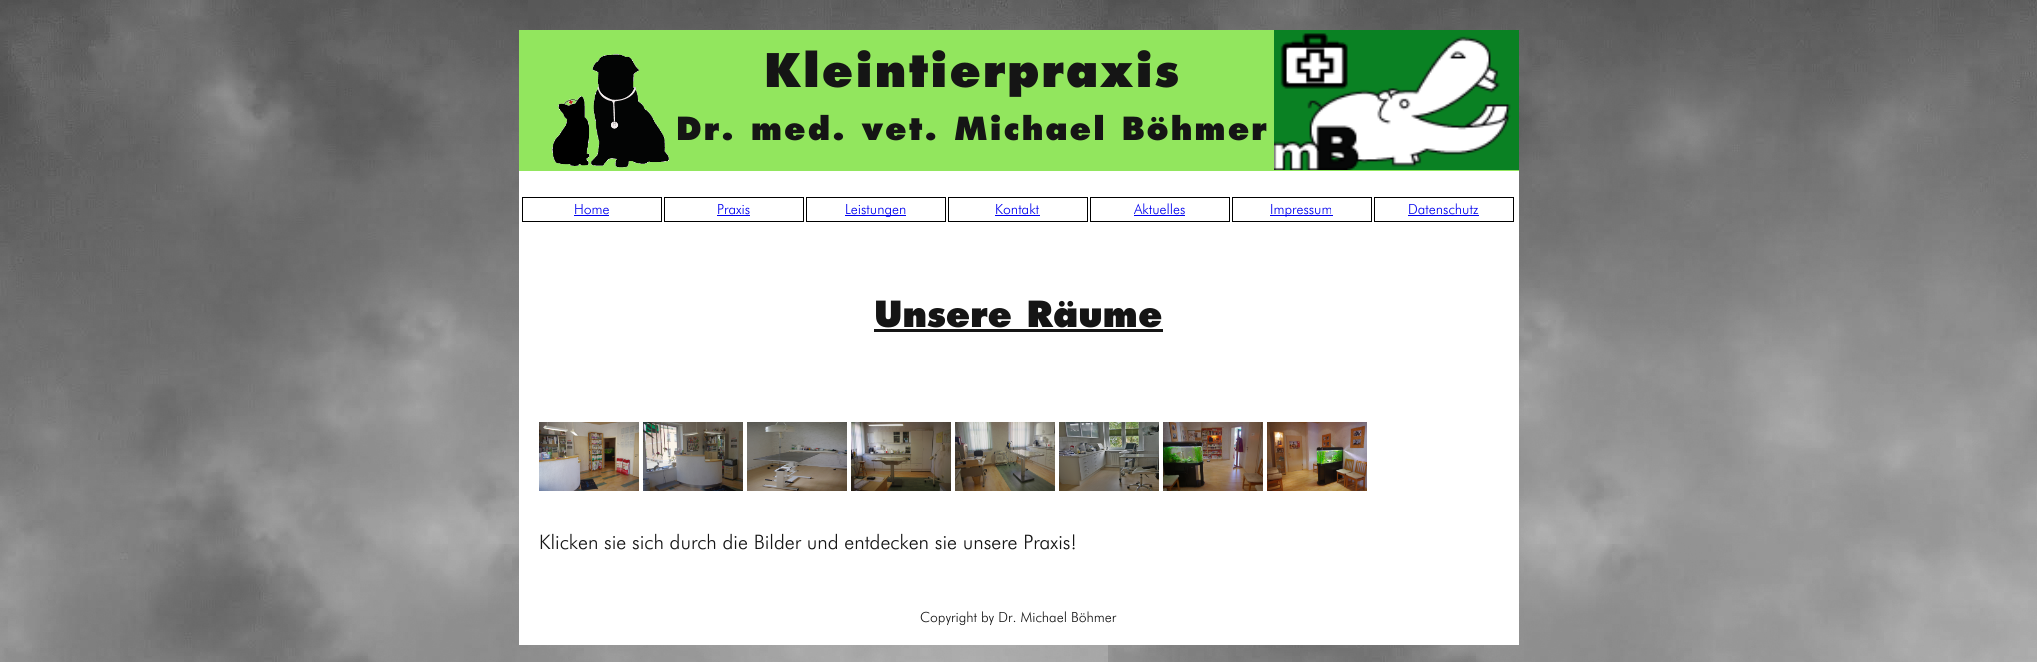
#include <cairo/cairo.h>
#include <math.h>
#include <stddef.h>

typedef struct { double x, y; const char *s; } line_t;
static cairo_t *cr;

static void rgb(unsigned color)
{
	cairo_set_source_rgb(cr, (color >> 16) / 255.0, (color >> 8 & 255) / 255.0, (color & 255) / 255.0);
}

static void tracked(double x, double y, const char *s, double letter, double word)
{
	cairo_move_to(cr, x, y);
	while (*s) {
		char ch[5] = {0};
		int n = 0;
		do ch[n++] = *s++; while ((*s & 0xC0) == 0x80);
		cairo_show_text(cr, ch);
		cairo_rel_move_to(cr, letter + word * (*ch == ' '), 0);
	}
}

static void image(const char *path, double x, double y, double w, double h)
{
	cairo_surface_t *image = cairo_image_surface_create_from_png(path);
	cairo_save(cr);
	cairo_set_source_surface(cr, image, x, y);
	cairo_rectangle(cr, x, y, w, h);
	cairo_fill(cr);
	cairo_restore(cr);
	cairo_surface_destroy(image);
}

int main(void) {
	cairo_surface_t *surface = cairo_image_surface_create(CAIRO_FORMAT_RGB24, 2037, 662);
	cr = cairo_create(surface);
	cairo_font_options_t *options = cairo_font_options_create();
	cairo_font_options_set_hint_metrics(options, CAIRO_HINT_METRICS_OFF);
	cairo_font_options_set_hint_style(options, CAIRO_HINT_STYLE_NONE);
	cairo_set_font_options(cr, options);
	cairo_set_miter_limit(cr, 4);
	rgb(0xffffff);
	cairo_paint(cr);
	image("img/1.png", 0, 0, 2037, 662);
	rgb(0xffffff);
	cairo_rectangle(cr, 519, 171, 1000, 474);
	cairo_fill(cr);
	rgb(0x92e65e);
	cairo_rectangle(cr, 519, 30, 1000, 141);
	cairo_fill(cr);
	image("img/2.png", 552, 54, 117, 114);
	image("img/3.png", 1274, 30, 245, 140);
	cairo_rectangle(cr, 522.5, 197.5, 139, 24);
	rgb(0x000000);
	cairo_set_line_width(cr, 1);
	cairo_stroke(cr);
	rgb(0x0000ee);
	cairo_rectangle(cr, 574, 215, 35, 1);
	cairo_fill(cr);
	cairo_rectangle(cr, 664.5, 197.5, 139, 24);
	rgb(0x000000);
	cairo_stroke(cr);
	rgb(0x0000ee);
	cairo_rectangle(cr, 717, 215, 33, 1);
	cairo_fill(cr);
	cairo_rectangle(cr, 806.5, 197.5, 139, 24);
	rgb(0x000000);
	cairo_stroke(cr);
	rgb(0x0000ee);
	cairo_rectangle(cr, 845, 215, 61, 1);
	cairo_fill(cr);
	cairo_rectangle(cr, 948.5, 197.5, 139, 24);
	rgb(0x000000);
	cairo_stroke(cr);
	rgb(0x0000ee);
	cairo_rectangle(cr, 995, 215, 45, 1);
	cairo_fill(cr);
	cairo_rectangle(cr, 1090.5, 197.5, 139, 24);
	rgb(0x000000);
	cairo_stroke(cr);
	rgb(0x0000ee);
	cairo_rectangle(cr, 1134, 215, 51, 1);
	cairo_fill(cr);
	cairo_rectangle(cr, 1232.5, 197.5, 139, 24);
	rgb(0x000000);
	cairo_stroke(cr);
	rgb(0x0000ee);
	cairo_rectangle(cr, 1270, 215, 63, 1);
	cairo_fill(cr);
	cairo_rectangle(cr, 1374.5, 197.5, 139, 24);
	rgb(0x000000);
	cairo_stroke(cr);
	rgb(0x0000ee);
	cairo_rectangle(cr, 1408, 215, 71, 1);
	cairo_fill(cr);
	rgb(0x151515);
	cairo_rectangle(cr, 874, 329, 289, 3);
	cairo_fill(cr);
	image("img/4.png", 539, 422, 100, 69);
	image("img/5.png", 643, 422, 100, 69);
	image("img/6.png", 747, 422, 100, 69);
	image("img/7.png", 851, 422, 100, 69);
	image("img/8.png", 955, 422, 100, 69);
	image("img/9.png", 1059, 422, 100, 69);
	image("img/10.png", 1163, 422, 100, 69);
	image("img/11.png", 1267, 422, 100, 69);
	cairo_select_font_face(cr, "Futura ExtraBold", CAIRO_FONT_SLANT_NORMAL, CAIRO_FONT_WEIGHT_NORMAL);
	cairo_set_font_size(cr, 45);
	tracked(764, 87, "Kleintierpraxis", 2, 0);
	cairo_set_font_size(cr, 31);
	tracked(676, 140, "Dr. med. vet. Michael Böhmer", 2, 0);
	cairo_select_font_face(cr, "Futura Black", CAIRO_FONT_SLANT_NORMAL, CAIRO_FONT_WEIGHT_NORMAL);
	cairo_set_font_size(cr, 14);
	rgb(0x0000ee);
	{
		static const line_t items[] = {
			{574, 214, "Home"},
			{717, 214, "Praxis"},
			{845, 214, "Leistungen"},
			{995, 214, "Kontakt"},
			{1134, 214, "Aktuelles"},
			{1270, 214, "Impressum"},
			{1408, 214, "Datenschutz"},
		};
		for (size_t i = 0; i < sizeof items / sizeof *items; i++) {
			cairo_move_to(cr, items[i].x, items[i].y);
			cairo_show_text(cr, items[i].s);
		}
	}
	cairo_select_font_face(cr, "Futura ExtraBold", CAIRO_FONT_SLANT_NORMAL, CAIRO_FONT_WEIGHT_NORMAL);
	cairo_set_font_size(cr, 35);
	rgb(0x151515);
	cairo_move_to(cr, 874, 327);
	cairo_show_text(cr, "Unsere Räume");
	cairo_select_font_face(cr, "Futura Black", CAIRO_FONT_SLANT_NORMAL, CAIRO_FONT_WEIGHT_NORMAL);
	cairo_set_font_size(cr, 20);
	cairo_move_to(cr, 539, 549);
	cairo_show_text(cr, "Klicken sie sich durch die Bilder und entdecken sie unsere Praxis!");
	cairo_set_font_size(cr, 14);
	cairo_move_to(cr, 920, 622);
	cairo_show_text(cr, "Copyright by Dr. Michael Böhmer");
	cairo_surface_write_to_png(surface, "page.png");
	cairo_font_options_destroy(options);
	cairo_destroy(cr);
	cairo_surface_destroy(surface);
	return 0;
}
